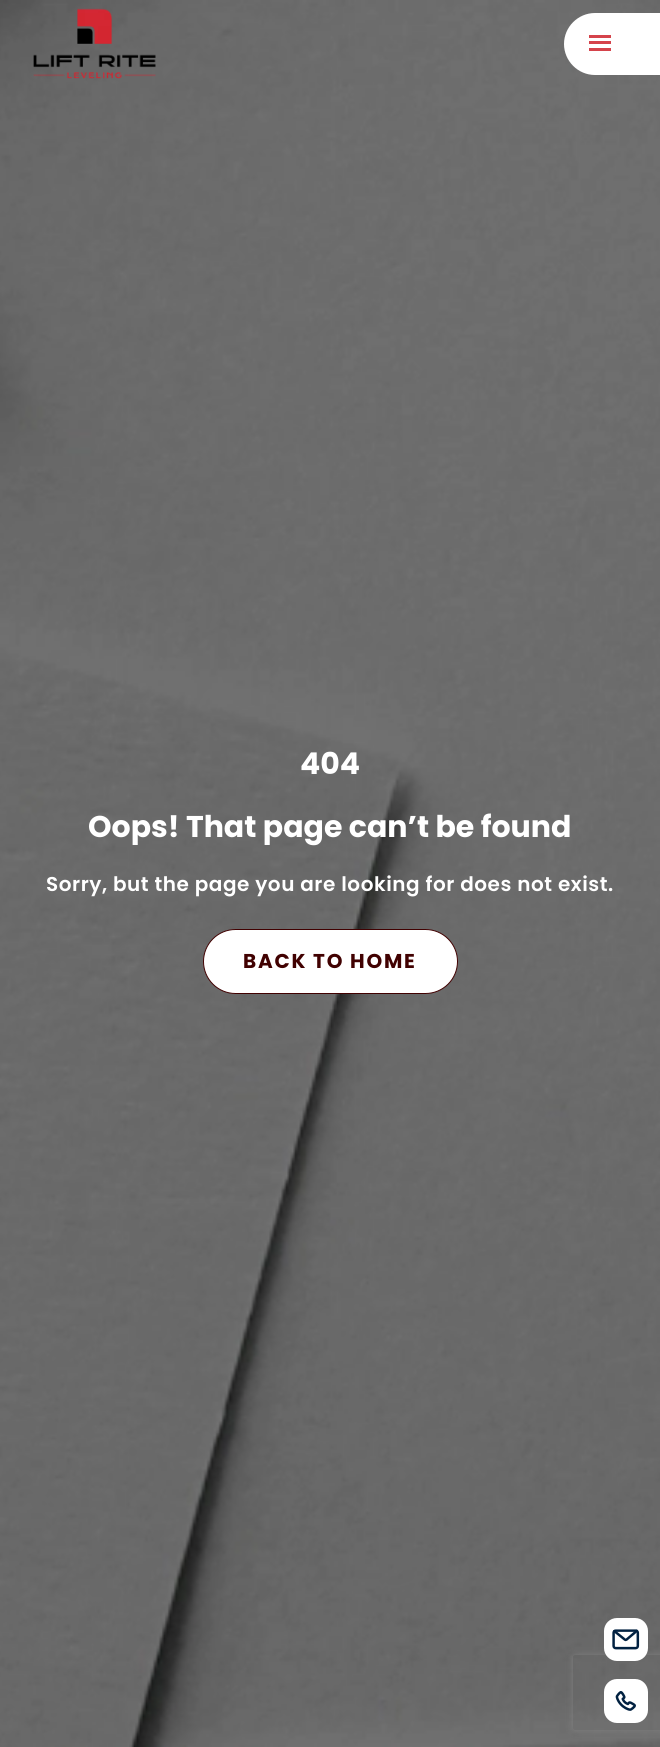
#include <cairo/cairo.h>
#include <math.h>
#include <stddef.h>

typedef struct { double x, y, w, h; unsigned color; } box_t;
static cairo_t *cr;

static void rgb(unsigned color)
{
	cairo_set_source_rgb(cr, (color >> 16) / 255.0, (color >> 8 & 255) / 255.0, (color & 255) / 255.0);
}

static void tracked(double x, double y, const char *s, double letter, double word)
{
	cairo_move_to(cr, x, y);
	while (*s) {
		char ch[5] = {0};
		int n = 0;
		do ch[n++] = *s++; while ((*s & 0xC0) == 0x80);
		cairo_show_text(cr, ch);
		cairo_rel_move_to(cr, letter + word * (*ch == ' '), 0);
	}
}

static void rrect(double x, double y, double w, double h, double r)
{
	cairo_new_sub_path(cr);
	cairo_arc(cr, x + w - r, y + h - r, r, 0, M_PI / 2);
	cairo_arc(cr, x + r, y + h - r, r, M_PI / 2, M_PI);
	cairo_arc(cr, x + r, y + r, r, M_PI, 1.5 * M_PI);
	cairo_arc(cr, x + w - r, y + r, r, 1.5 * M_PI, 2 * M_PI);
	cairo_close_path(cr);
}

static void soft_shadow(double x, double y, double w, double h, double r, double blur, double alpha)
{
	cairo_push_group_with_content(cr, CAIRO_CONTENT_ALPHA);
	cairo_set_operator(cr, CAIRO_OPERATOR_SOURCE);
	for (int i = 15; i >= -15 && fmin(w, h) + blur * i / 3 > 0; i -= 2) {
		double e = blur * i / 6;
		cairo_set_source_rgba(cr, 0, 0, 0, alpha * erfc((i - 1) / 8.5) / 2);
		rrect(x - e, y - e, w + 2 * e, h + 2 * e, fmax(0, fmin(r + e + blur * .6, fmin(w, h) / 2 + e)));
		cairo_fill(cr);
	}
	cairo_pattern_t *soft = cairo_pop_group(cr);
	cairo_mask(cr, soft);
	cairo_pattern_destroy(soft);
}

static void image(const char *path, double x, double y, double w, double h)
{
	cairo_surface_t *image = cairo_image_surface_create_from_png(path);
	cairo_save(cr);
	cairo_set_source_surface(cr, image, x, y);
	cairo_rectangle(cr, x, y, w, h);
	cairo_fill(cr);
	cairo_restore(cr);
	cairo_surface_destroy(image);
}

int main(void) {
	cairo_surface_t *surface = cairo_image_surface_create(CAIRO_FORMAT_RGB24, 660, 1747);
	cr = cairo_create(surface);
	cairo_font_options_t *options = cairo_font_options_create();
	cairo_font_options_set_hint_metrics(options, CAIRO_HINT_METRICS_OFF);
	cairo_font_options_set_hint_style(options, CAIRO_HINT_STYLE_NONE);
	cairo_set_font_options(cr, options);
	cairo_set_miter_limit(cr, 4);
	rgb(0xffffff);
	cairo_paint(cr);
	image("img/4.png", 0, 0, 660, 1747);
	image("img/1.png", 33, 8, 123, 71);
	rgb(0xffffff);
	cairo_new_path(cr);
	cairo_move_to(cr, 595, 13);
	cairo_line_to(cr, 660, 13);
	cairo_line_to(cr, 660, 75);
	cairo_line_to(cr, 595, 75);
	cairo_curve_to(cr, 578, 75, 564, 61, 564, 44);
	cairo_curve_to(cr, 564, 27, 578, 13, 595, 13);
	cairo_close_path(cr);
	cairo_fill(cr);
	{
		static const box_t items[] = {
			{589, 35, 22, 3, 0xd5434b},
			{589, 41, 22, 3, 0xd5434b},
			{589, 48, 22, 3, 0xd5434b},
		};
		for (size_t i = 0; i < sizeof items / sizeof *items; i++) {
			rgb(items[i].color);
			cairo_rectangle(cr, items[i].x, items[i].y, items[i].w, items[i].h);
			cairo_fill(cr);
		}
	}
	cairo_save(cr);
	cairo_set_fill_rule(cr, CAIRO_FILL_RULE_EVEN_ODD);
	cairo_new_path(cr);
	cairo_move_to(cr, 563, 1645);
	cairo_line_to(cr, 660, 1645);
	cairo_line_to(cr, 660, 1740);
	cairo_line_to(cr, 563, 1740);
	cairo_close_path(cr);
	cairo_move_to(cr, 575.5, 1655);
	cairo_line_to(cr, 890.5, 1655);
	cairo_curve_to(cr, 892, 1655, 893, 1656, 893, 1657.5);
	cairo_line_to(cr, 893, 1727.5);
	cairo_curve_to(cr, 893, 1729, 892, 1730, 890.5, 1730);
	cairo_line_to(cr, 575.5, 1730);
	cairo_curve_to(cr, 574, 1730, 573, 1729, 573, 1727.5);
	cairo_line_to(cr, 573, 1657.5);
	cairo_curve_to(cr, 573, 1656, 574, 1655, 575.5, 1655);
	cairo_close_path(cr);
	cairo_clip(cr);
	rgb(0x808080);
	soft_shadow(573, 1655, 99, 75, 2.5, 3, 1);
	cairo_restore(cr);
	rgb(0xffffff);
	rrect(604, 1618, 44, 43, 13);
	cairo_fill(cr);
	image("img/2.png", 612, 1629, 28, 21);
	rrect(604, 1679, 44, 44, 13);
	cairo_fill(cr);
	image("img/3.png", 615, 1691, 21, 20);
	rrect(203.5, 929.5, 254, 64, 32);
	cairo_fill_preserve(cr);
	rgb(0x410101);
	cairo_set_line_width(cr, 1);
	cairo_stroke(cr);
	cairo_select_font_face(cr, "Poppins", CAIRO_FONT_SLANT_NORMAL, CAIRO_FONT_WEIGHT_BOLD);
	cairo_set_font_size(cr, 30);
	rgb(0xffffff);
	cairo_move_to(cr, 300, 774);
	cairo_show_text(cr, "404");
	cairo_move_to(cr, 88, 837);
	cairo_show_text(cr, "Oops! That page can’t be found");
	cairo_select_font_face(cr, "Poppins SemiBold", CAIRO_FONT_SLANT_NORMAL, CAIRO_FONT_WEIGHT_NORMAL);
	cairo_set_font_size(cr, 20);
	tracked(46, 891, "Sorry, but the page you are looking for does not exist.", 0.55, 0);
	cairo_select_font_face(cr, "Poppins", CAIRO_FONT_SLANT_NORMAL, CAIRO_FONT_WEIGHT_BOLD);
	rgb(0x410101);
	tracked(243, 968, "BACK TO HOME", 1.75, 0);
	cairo_surface_write_to_png(surface, "page.png");
	cairo_font_options_destroy(options);
	cairo_destroy(cr);
	cairo_surface_destroy(surface);
	return 0;
}
